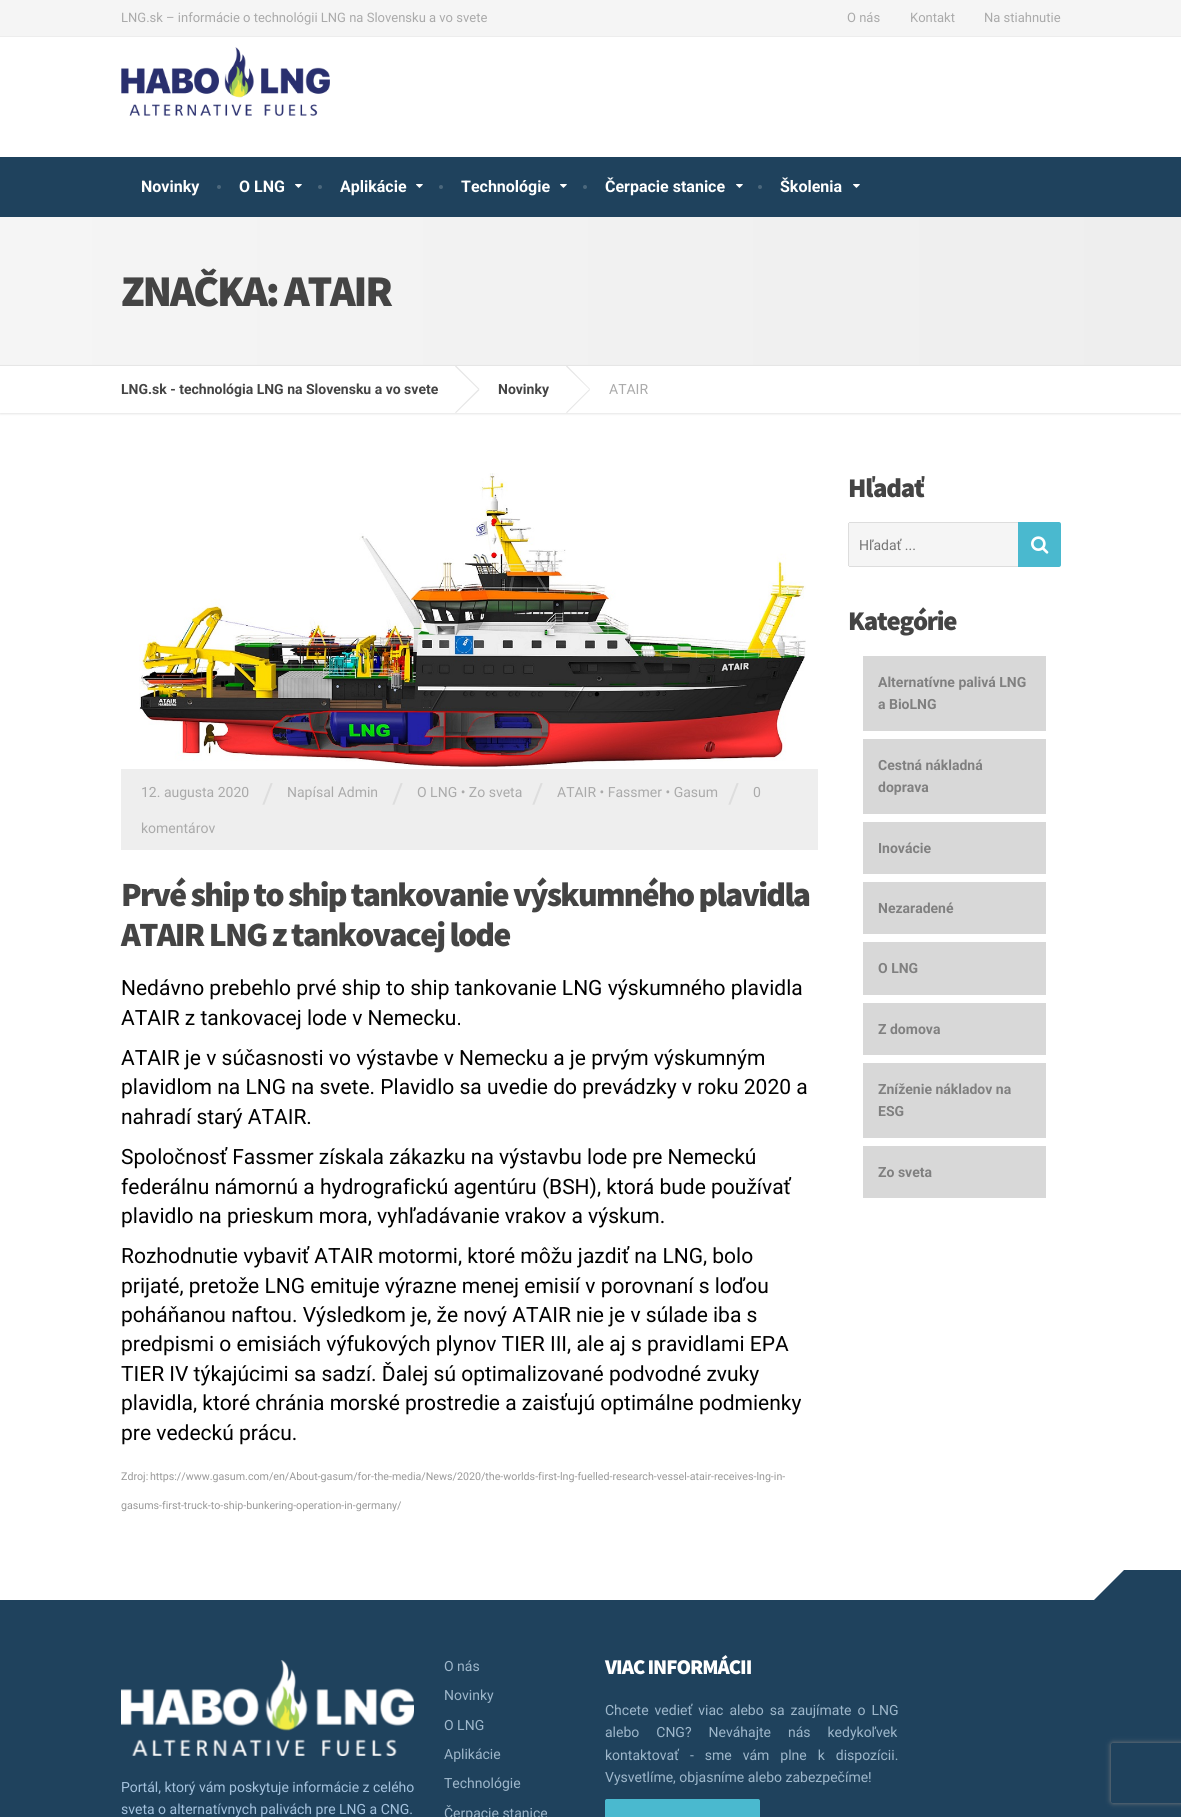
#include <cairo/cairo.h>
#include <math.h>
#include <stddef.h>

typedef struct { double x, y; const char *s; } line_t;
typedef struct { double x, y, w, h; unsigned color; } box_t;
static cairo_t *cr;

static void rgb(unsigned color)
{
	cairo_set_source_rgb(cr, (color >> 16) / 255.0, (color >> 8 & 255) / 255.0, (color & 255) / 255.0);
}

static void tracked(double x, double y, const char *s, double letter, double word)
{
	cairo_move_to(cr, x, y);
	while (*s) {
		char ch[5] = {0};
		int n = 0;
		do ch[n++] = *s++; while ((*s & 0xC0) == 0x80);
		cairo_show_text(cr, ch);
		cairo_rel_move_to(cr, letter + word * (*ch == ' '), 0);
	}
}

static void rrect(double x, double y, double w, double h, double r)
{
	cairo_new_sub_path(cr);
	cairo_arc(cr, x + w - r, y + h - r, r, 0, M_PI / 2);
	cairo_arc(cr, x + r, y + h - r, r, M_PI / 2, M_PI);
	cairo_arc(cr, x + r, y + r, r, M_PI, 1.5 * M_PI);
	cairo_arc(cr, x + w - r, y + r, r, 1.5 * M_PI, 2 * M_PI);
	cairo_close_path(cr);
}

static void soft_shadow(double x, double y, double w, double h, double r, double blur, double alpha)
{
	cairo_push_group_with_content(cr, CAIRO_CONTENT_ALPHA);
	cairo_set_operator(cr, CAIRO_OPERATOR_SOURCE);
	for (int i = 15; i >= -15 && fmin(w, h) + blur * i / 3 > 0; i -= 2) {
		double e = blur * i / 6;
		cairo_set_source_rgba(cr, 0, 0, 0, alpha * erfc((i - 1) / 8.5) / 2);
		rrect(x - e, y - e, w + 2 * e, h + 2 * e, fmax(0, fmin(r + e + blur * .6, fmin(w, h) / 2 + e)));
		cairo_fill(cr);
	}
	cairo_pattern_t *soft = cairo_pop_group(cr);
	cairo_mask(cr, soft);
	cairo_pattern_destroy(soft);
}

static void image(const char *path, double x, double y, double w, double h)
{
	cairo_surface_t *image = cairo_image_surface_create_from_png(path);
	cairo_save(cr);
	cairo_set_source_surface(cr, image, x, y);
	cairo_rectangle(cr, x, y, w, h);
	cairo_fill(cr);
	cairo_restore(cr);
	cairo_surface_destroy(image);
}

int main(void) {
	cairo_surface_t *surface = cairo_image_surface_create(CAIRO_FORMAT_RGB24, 1181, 1817);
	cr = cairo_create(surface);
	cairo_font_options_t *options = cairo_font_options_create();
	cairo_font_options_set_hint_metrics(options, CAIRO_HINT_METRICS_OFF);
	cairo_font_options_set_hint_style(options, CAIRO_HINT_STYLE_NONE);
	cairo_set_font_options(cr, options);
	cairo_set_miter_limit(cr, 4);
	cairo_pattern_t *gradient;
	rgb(0xffffff);
	cairo_paint(cr);
	{
		static const box_t items[] = {
			{0, 0, 1181, 36, 0xf5f5f5},
			{0, 36, 1181, 1, 0xededed},
			{0, 157, 1181, 60, 0x1f425d},
		};
		for (size_t i = 0; i < sizeof items / sizeof *items; i++) {
			rgb(items[i].color);
			cairo_rectangle(cr, items[i].x, items[i].y, items[i].w, items[i].h);
			cairo_fill(cr);
		}
	}
	image("img/1.png", 121, 47, 209, 69);
	rgb(0x4b677c);
	cairo_arc(cr, 219, 187, 2, 0, 2 * M_PI);
	cairo_fill(cr);
	cairo_arc(cr, 320, 187, 2, 0, 2 * M_PI);
	cairo_fill(cr);
	image("img/2.png", 295, 184, 7, 4);
	cairo_arc(cr, 441, 187, 2, 0, 2 * M_PI);
	cairo_fill(cr);
	image("img/2.png", 416, 184, 7, 4);
	cairo_arc(cr, 585, 187, 2, 0, 2 * M_PI);
	cairo_fill(cr);
	image("img/2.png", 560, 184, 7, 4);
	cairo_arc(cr, 760, 187, 2, 0, 2 * M_PI);
	cairo_fill(cr);
	image("img/2.png", 736, 184, 7, 4);
	image("img/2.png", 853, 184, 7, 4);
	gradient = cairo_pattern_create_linear(0, 291, 1181, 291);
	cairo_pattern_add_color_stop_rgba(gradient, 0, 0.961, 0.961, 0.961, 1);
	cairo_pattern_add_color_stop_rgba(gradient, 1, 0.933, 0.933, 0.933, 1);
	cairo_set_source(cr, gradient);
	cairo_pattern_destroy(gradient);
	cairo_rectangle(cr, 0, 217, 1181, 148);
	cairo_fill(cr);
	cairo_save(cr);
	cairo_set_fill_rule(cr, CAIRO_FILL_RULE_EVEN_ODD);
	cairo_new_path(cr);
	cairo_move_to(cr, 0, 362);
	cairo_line_to(cr, 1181, 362);
	cairo_line_to(cr, 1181, 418);
	cairo_line_to(cr, 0, 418);
	cairo_close_path(cr);
	cairo_move_to(cr, 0, 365);
	cairo_line_to(cr, 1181, 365);
	cairo_line_to(cr, 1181, 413);
	cairo_line_to(cr, 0, 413);
	cairo_close_path(cr);
	cairo_clip(cr);
	rgb(0xe6e6e6);
	soft_shadow(0, 366, 1181, 48, 0, 1, 1);
	cairo_restore(cr);
	rgb(0xe6e6e6);
	cairo_rectangle(cr, 0, 365, 1181, 1);
	cairo_fill(cr);
	cairo_new_path(cr);
	cairo_move_to(cr, 455, 366.5);
	cairo_line_to(cr, 456, 365.5);
	cairo_line_to(cr, 479.5, 389);
	cairo_line_to(cr, 478.5, 389.5);
	cairo_close_path(cr);
	cairo_fill(cr);
	cairo_new_path(cr);
	cairo_move_to(cr, 478.5, 389);
	cairo_line_to(cr, 479.5, 390);
	cairo_line_to(cr, 456, 413);
	cairo_line_to(cr, 455, 412.5);
	cairo_close_path(cr);
	cairo_fill(cr);
	cairo_new_path(cr);
	cairo_move_to(cr, 566, 366.5);
	cairo_line_to(cr, 567, 365.5);
	cairo_line_to(cr, 590, 389);
	cairo_line_to(cr, 589.5, 389.5);
	cairo_close_path(cr);
	cairo_fill(cr);
	cairo_new_path(cr);
	cairo_move_to(cr, 589.5, 389);
	cairo_line_to(cr, 590, 390);
	cairo_line_to(cr, 567, 413);
	cairo_line_to(cr, 566, 412.5);
	cairo_close_path(cr);
	cairo_fill(cr);
	image("img/3.png", 139, 473, 667, 295);
	rgb(0xeeeeee);
	cairo_rectangle(cr, 121, 769, 697, 81);
	cairo_fill(cr);
	rgb(0xf5f5f5);
	cairo_new_path(cr);
	cairo_move_to(cr, 850, 522);
	cairo_line_to(cr, 1018, 522);
	cairo_line_to(cr, 1018, 567);
	cairo_line_to(cr, 850, 567);
	cairo_curve_to(cr, 849, 567, 848, 566, 848, 565);
	cairo_line_to(cr, 848, 524);
	cairo_curve_to(cr, 848, 523, 849, 522, 850, 522);
	cairo_close_path(cr);
	cairo_fill(cr);
	{
		static const box_t items[] = {
			{849, 522, 169, 1, 0xdddddd},
			{849, 566, 169, 1, 0xdddddd},
			{848, 523, 1, 43, 0xdddddd},
		};
		for (size_t i = 0; i < sizeof items / sizeof *items; i++) {
			rgb(items[i].color);
			cairo_rectangle(cr, items[i].x, items[i].y, items[i].w, items[i].h);
			cairo_fill(cr);
		}
	}
	rgb(0x4ab9cf);
	cairo_new_path(cr);
	cairo_move_to(cr, 1018, 522);
	cairo_line_to(cr, 1059, 522);
	cairo_curve_to(cr, 1060, 522, 1061, 523, 1061, 524);
	cairo_line_to(cr, 1061, 565);
	cairo_curve_to(cr, 1061, 566, 1060, 567, 1059, 567);
	cairo_line_to(cr, 1018, 567);
	cairo_close_path(cr);
	cairo_fill(cr);
	image("img/4.png", 1031, 536, 18, 18);
	{
		static const box_t items[] = {
			{863, 656, 183, 75, 0xd8d8d8},
			{863, 739, 183, 75, 0xd8d8d8},
			{863, 822, 183, 52, 0xd8d8d8},
			{863, 882, 183, 52, 0xd8d8d8},
			{863, 942, 183, 53, 0xd8d8d8},
			{863, 1003, 183, 52, 0xd8d8d8},
			{863, 1063, 183, 75, 0xd8d8d8},
			{863, 1146, 183, 52, 0xd8d8d8},
			{0, 1600, 1181, 217, 0x1f425d},
		};
		for (size_t i = 0; i < sizeof items / sizeof *items; i++) {
			rgb(items[i].color);
			cairo_rectangle(cr, items[i].x, items[i].y, items[i].w, items[i].h);
			cairo_fill(cr);
		}
	}
	cairo_new_path(cr);
	cairo_move_to(cr, 1154, 1600);
	cairo_line_to(cr, 1124, 1631);
	cairo_line_to(cr, 1094, 1600);
	cairo_line_to(cr, 1124, 1570);
	cairo_close_path(cr);
	cairo_fill(cr);
	cairo_rectangle(cr, 1124, 1570, 57, 30);
	cairo_fill(cr);
	image("img/5.png", 121, 1660, 293, 96);
	rgb(0x4ab9cf);
	rrect(605.5, 1799.5, 154, 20, 1.5);
	cairo_fill_preserve(cr);
	cairo_set_line_width(cr, 1);
	cairo_stroke(cr);
	cairo_save(cr);
	cairo_set_fill_rule(cr, CAIRO_FILL_RULE_EVEN_ODD);
	cairo_new_path(cr);
	cairo_move_to(cr, 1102, 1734);
	cairo_line_to(cr, 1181, 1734);
	cairo_line_to(cr, 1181, 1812);
	cairo_line_to(cr, 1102, 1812);
	cairo_close_path(cr);
	cairo_move_to(cr, 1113, 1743);
	cairo_line_to(cr, 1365, 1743);
	cairo_curve_to(cr, 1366, 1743, 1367, 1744, 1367, 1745);
	cairo_line_to(cr, 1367, 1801);
	cairo_curve_to(cr, 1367, 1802, 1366, 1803, 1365, 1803);
	cairo_line_to(cr, 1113, 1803);
	cairo_curve_to(cr, 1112, 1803, 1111, 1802, 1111, 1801);
	cairo_line_to(cr, 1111, 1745);
	cairo_curve_to(cr, 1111, 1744, 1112, 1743, 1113, 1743);
	cairo_close_path(cr);
	cairo_clip(cr);
	rgb(0x808080);
	soft_shadow(1111, 1743, 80, 60, 2, 2.5, 1);
	cairo_restore(cr);
	cairo_select_font_face(cr, "Roboto", CAIRO_FONT_SLANT_NORMAL, CAIRO_FONT_WEIGHT_NORMAL);
	cairo_set_font_size(cr, 13);
	rgb(0xaaaaaa);
	{
		static const line_t items[] = {
			{121, 22, "LNG.sk – informácie o technológii LNG na Slovensku a vo svete"},
			{847, 22, "O nás"},
			{910, 22, "Kontakt"},
			{984, 22, "Na stiahnutie"},
		};
		for (size_t i = 0; i < sizeof items / sizeof *items; i++) {
			cairo_move_to(cr, items[i].x, items[i].y);
			cairo_show_text(cr, items[i].s);
		}
	}
	cairo_select_font_face(cr, "Roboto", CAIRO_FONT_SLANT_NORMAL, CAIRO_FONT_WEIGHT_BOLD);
	cairo_set_font_size(cr, 16);
	rgb(0xffffff);
	{
		static const line_t items[] = {
			{141, 192, "Novinky"},
			{239, 192, "O LNG"},
			{340, 192, "Aplikácie"},
			{461, 192, "Technológie"},
			{605, 192, "Čerpacie stanice"},
			{780, 192, "Školenia"},
		};
		for (size_t i = 0; i < sizeof items / sizeof *items; i++) {
			cairo_move_to(cr, items[i].x, items[i].y);
			cairo_show_text(cr, items[i].s);
		}
	}
	cairo_select_font_face(cr, "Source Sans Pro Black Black", CAIRO_FONT_SLANT_NORMAL, CAIRO_FONT_WEIGHT_NORMAL);
	cairo_set_font_size(cr, 44);
	rgb(0x444444);
	tracked(121, 306, "ZNAČKA: ATAIR", -2.25, 0);
	cairo_select_font_face(cr, "Roboto", CAIRO_FONT_SLANT_NORMAL, CAIRO_FONT_WEIGHT_BOLD);
	cairo_set_font_size(cr, 14);
	cairo_move_to(cr, 121, 394);
	cairo_show_text(cr, "LNG.sk - technológia LNG na Slovensku a vo svete");
	cairo_move_to(cr, 498, 394);
	cairo_show_text(cr, "Novinky");
	cairo_select_font_face(cr, "Roboto", CAIRO_FONT_SLANT_NORMAL, CAIRO_FONT_WEIGHT_NORMAL);
	rgb(0xaaaaaa);
	cairo_move_to(cr, 609, 394);
	cairo_show_text(cr, "ATAIR");
	cairo_move_to(cr, 141, 797);
	cairo_show_text(cr, "12. augusta 2020");
	cairo_set_font_size(cr, 28);
	rgb(0xdddddd);
	cairo_move_to(cr, 262, 803);
	cairo_show_text(cr, "/");
	cairo_set_font_size(cr, 14);
	rgb(0xaaaaaa);
	cairo_move_to(cr, 287, 797);
	cairo_show_text(cr, "Napísal Admin");
	cairo_set_font_size(cr, 28);
	rgb(0xdddddd);
	cairo_move_to(cr, 392, 803);
	cairo_show_text(cr, "/");
	cairo_set_font_size(cr, 14);
	rgb(0xaaaaaa);
	cairo_move_to(cr, 417, 797);
	cairo_show_text(cr, "O LNG • Zo sveta");
	cairo_set_font_size(cr, 28);
	rgb(0xdddddd);
	cairo_move_to(cr, 532, 803);
	cairo_show_text(cr, "/");
	cairo_set_font_size(cr, 14);
	rgb(0xaaaaaa);
	cairo_move_to(cr, 557, 797);
	cairo_show_text(cr, "ATAIR • Fassmer • Gasum");
	cairo_set_font_size(cr, 28);
	rgb(0xdddddd);
	cairo_move_to(cr, 728, 803);
	cairo_show_text(cr, "/");
	cairo_set_font_size(cr, 14);
	rgb(0xaaaaaa);
	cairo_move_to(cr, 753, 797);
	cairo_show_text(cr, "0");
	cairo_move_to(cr, 141, 833);
	cairo_show_text(cr, "komentárov");
	cairo_select_font_face(cr, "Source Sans Pro Black Black", CAIRO_FONT_SLANT_NORMAL, CAIRO_FONT_WEIGHT_NORMAL);
	cairo_set_font_size(cr, 34);
	rgb(0x444444);
	tracked(121, 906, "Prvé ship to ship tankovanie výskumného plavidla", -1.7, 0);
	tracked(121, 946, "ATAIR LNG z tankovacej lode", -1.7, 0);
	cairo_select_font_face(cr, "Roboto", CAIRO_FONT_SLANT_NORMAL, CAIRO_FONT_WEIGHT_NORMAL);
	cairo_set_font_size(cr, 21);
	rgb(0x000000);
	{
		static const line_t items[] = {
			{121, 995, "Nedávno prebehlo prvé ship to ship tankovanie LNG výskumného plavidla"},
			{121, 1025, "ATAIR z tankovacej lode v Nemecku."},
			{121, 1065, "ATAIR je v súčasnosti vo výstavbe v Nemecku a je prvým výskumným"},
			{121, 1094, "plavidlom na LNG na svete. Plavidlo sa uvedie do prevádzky v roku 2020 a"},
			{121, 1124, "nahradí starý ATAIR."},
			{121, 1164, "Spoločnosť Fassmer získala zákazku na výstavbu lode pre Nemeckú"},
			{121, 1194, "federálnu námornú a hydrografickú agentúru (BSH), ktorá bude používať"},
			{121, 1223, "plavidlo na prieskum mora, vyhľadávanie vrakov a výskum."},
			{121, 1263, "Rozhodnutie vybaviť ATAIR motormi, ktoré môžu jazdiť na LNG, bolo"},
			{121, 1293, "prijaté, pretože LNG emituje výrazne menej emisií v porovnaní s loďou"},
			{121, 1322, "poháňanou naftou. Výsledkom je, že nový ATAIR nie je v súlade iba s"},
			{121, 1351, "predpismi o emisiách výfukových plynov TIER III, ale aj s pravidlami EPA"},
			{121, 1381, "TIER IV týkajúcimi sa sadzí. Ďalej sú optimalizované podvodné zvuky"},
			{121, 1410, "plavidla, ktoré chránia morské prostredie a zaisťujú optimálne podmienky"},
			{121, 1440, "pre vedeckú prácu."},
		};
		for (size_t i = 0; i < sizeof items / sizeof *items; i++) {
			cairo_move_to(cr, items[i].x, items[i].y);
			cairo_show_text(cr, items[i].s);
		}
	}
	cairo_set_font_size(cr, 10.67);
	rgb(0x999999);
	tracked(121, 1480, "Zdroj: https://www.gasum.com/en/About-gasum/for-the-media/News/2020/the-worlds-first-lng-fuelled-research-vessel-atair-receives-lng-in-", 0, -1);
	cairo_move_to(cr, 121, 1509);
	cairo_show_text(cr, "gasums-first-truck-to-ship-bunkering-operation-in-germany/");
	cairo_select_font_face(cr, "Source Sans Pro Black Black", CAIRO_FONT_SLANT_NORMAL, CAIRO_FONT_WEIGHT_NORMAL);
	cairo_set_font_size(cr, 27);
	rgb(0x444444);
	tracked(848, 497, "Hľadať", -1.25, 0);
	cairo_select_font_face(cr, "Roboto", CAIRO_FONT_SLANT_NORMAL, CAIRO_FONT_WEIGHT_NORMAL);
	cairo_set_font_size(cr, 14);
	rgb(0x757575);
	cairo_move_to(cr, 859, 550);
	cairo_show_text(cr, "Hľadať ...");
	cairo_select_font_face(cr, "Source Sans Pro Black Black", CAIRO_FONT_SLANT_NORMAL, CAIRO_FONT_WEIGHT_NORMAL);
	cairo_set_font_size(cr, 27);
	rgb(0x444444);
	tracked(848, 630, "Kategórie", -1.25, 0);
	cairo_select_font_face(cr, "Roboto", CAIRO_FONT_SLANT_NORMAL, CAIRO_FONT_WEIGHT_BOLD);
	cairo_set_font_size(cr, 14);
	rgb(0x808080);
	{
		static const line_t items[] = {
			{878, 687, "Alternatívne palivá LNG"},
			{878, 709, "a BioLNG"},
			{878, 770, "Cestná nákladná"},
			{878, 792, "doprava"},
			{878, 853, "Inovácie"},
			{878, 913, "Nezaradené"},
			{878, 973, "O LNG"},
			{878, 1034, "Z domova"},
			{878, 1094, "Zníženie nákladov na"},
			{878, 1116, "ESG"},
			{878, 1177, "Zo sveta"},
		};
		for (size_t i = 0; i < sizeof items / sizeof *items; i++) {
			cairo_move_to(cr, items[i].x, items[i].y);
			cairo_show_text(cr, items[i].s);
		}
	}
	cairo_select_font_face(cr, "Roboto", CAIRO_FONT_SLANT_NORMAL, CAIRO_FONT_WEIGHT_NORMAL);
	rgb(0xa4c2de);
	cairo_move_to(cr, 121, 1792);
	cairo_show_text(cr, "Portál, ktorý vám poskytuje informácie z celého");
	cairo_move_to(cr, 121, 1814);
	cairo_show_text(cr, "sveta o alternatívnych palivách pre LNG a CNG.");
	rgb(0x9eb7cb);
	{
		static const line_t items[] = {
			{444, 1671, "O nás"},
			{444, 1700, "Novinky"},
			{444, 1730, "O LNG"},
			{444, 1759, "Aplikácie"},
			{444, 1788, "Technológie"},
			{444, 1818, "Čerpacie stanice"},
		};
		for (size_t i = 0; i < sizeof items / sizeof *items; i++) {
			cairo_move_to(cr, items[i].x, items[i].y);
			cairo_show_text(cr, items[i].s);
		}
	}
	cairo_select_font_face(cr, "Source Sans Pro Black Black", CAIRO_FONT_SLANT_NORMAL, CAIRO_FONT_WEIGHT_NORMAL);
	cairo_set_font_size(cr, 21);
	rgb(0xffffff);
	tracked(605, 1674, "VIAC INFORMÁCII", -1, 0);
	cairo_select_font_face(cr, "Roboto", CAIRO_FONT_SLANT_NORMAL, CAIRO_FONT_WEIGHT_NORMAL);
	cairo_set_font_size(cr, 14);
	rgb(0x9eb7cb);
	tracked(605, 1715, "Chcete vedieť viac alebo sa zaujímate o LNG", 0, 2.5);
	tracked(605, 1737, "alebo CNG? Neváhajte nás kedykoľvek", 0, 13.5);
	tracked(605, 1760, "kontaktovať - sme vám plne k dispozícii.", 0, 7.5);
	cairo_move_to(cr, 605, 1782);
	cairo_show_text(cr, "Vysvetlíme, objasníme alebo zabezpečíme!");
	cairo_surface_write_to_png(surface, "page.png");
	cairo_font_options_destroy(options);
	cairo_destroy(cr);
	cairo_surface_destroy(surface);
	return 0;
}
